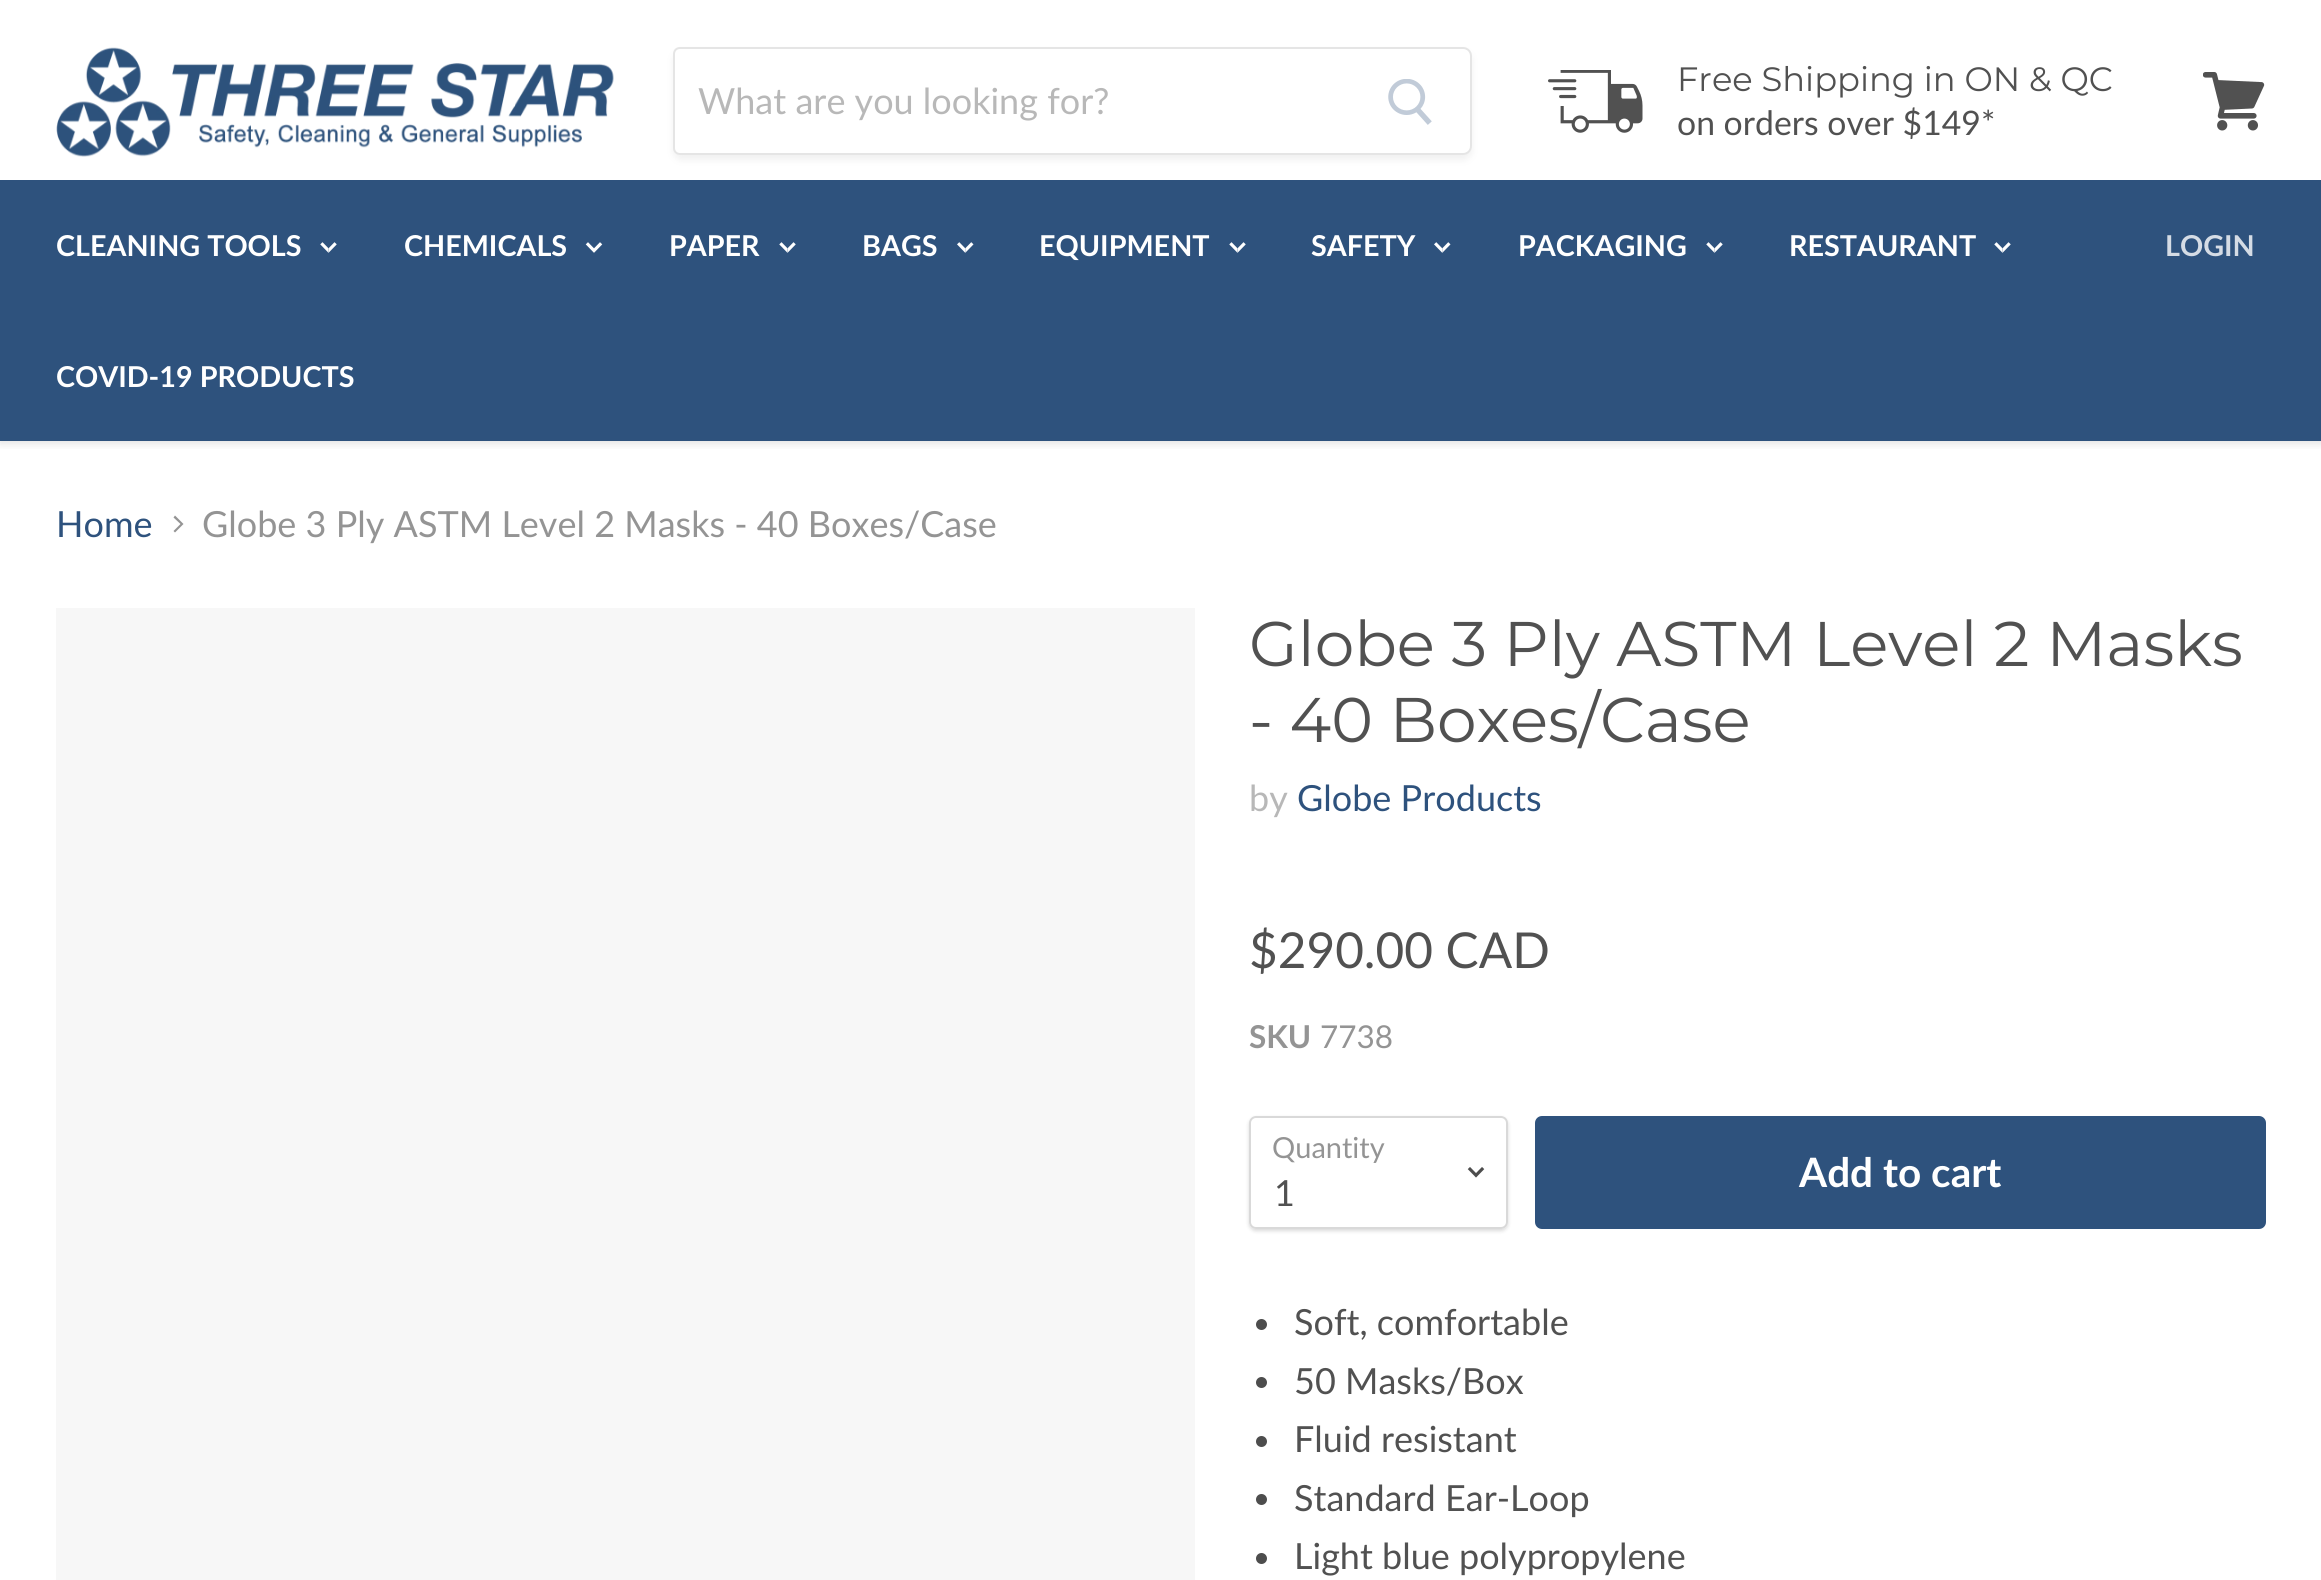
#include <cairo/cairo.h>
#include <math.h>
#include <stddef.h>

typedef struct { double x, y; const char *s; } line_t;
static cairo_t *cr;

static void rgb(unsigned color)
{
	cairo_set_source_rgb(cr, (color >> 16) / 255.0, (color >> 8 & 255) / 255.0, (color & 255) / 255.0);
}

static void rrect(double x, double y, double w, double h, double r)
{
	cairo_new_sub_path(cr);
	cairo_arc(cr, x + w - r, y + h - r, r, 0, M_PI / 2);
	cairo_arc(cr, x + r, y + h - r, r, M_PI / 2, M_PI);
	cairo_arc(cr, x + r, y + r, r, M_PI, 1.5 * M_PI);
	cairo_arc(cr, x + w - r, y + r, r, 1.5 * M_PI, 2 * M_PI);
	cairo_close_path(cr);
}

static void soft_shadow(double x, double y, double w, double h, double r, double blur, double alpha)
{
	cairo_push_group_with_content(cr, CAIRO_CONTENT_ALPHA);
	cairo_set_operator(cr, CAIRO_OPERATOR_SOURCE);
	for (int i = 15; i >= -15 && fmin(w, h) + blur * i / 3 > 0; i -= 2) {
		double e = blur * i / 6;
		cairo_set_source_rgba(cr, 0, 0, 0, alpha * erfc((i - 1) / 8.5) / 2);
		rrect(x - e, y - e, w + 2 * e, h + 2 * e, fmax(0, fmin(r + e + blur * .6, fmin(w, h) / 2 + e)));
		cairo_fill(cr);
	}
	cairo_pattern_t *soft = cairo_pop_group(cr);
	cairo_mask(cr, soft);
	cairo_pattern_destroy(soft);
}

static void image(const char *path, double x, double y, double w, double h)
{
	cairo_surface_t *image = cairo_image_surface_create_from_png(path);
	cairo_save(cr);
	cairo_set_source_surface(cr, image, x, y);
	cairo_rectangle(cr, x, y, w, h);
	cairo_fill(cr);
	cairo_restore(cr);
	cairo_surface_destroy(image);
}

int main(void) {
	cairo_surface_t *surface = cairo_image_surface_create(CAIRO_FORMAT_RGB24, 2321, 1580);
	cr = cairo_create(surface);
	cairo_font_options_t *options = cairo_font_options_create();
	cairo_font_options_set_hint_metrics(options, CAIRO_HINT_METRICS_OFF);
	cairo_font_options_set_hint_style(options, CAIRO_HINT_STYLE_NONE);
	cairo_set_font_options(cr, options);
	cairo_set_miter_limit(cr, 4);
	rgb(0xffffff);
	cairo_paint(cr);
	cairo_save(cr);
	cairo_rectangle(cr, 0, 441, 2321, 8);
	cairo_clip(cr);
	rgb(0x7f7f7f);
	soft_shadow(0, 2, 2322, 441, 0, 4.5, 0.25);
	cairo_restore(cr);
	image("img/1.png", 56, 47, 558, 110);
	cairo_save(cr);
	cairo_set_fill_rule(cr, CAIRO_FILL_RULE_EVEN_ODD);
	cairo_new_path(cr);
	cairo_move_to(cr, 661, 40);
	cairo_line_to(cr, 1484, 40);
	cairo_line_to(cr, 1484, 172);
	cairo_line_to(cr, 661, 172);
	cairo_close_path(cr);
	cairo_move_to(cr, 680, 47);
	cairo_line_to(cr, 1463, 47);
	cairo_curve_to(cr, 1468, 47, 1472, 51, 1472, 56);
	cairo_line_to(cr, 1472, 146);
	cairo_curve_to(cr, 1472, 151, 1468, 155, 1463, 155);
	cairo_line_to(cr, 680, 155);
	cairo_curve_to(cr, 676, 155, 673, 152, 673, 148);
	cairo_line_to(cr, 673, 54);
	cairo_curve_to(cr, 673, 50, 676, 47, 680, 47);
	cairo_close_path(cr);
	cairo_clip(cr);
	rgb(0x7f7f7f);
	soft_shadow(673, 52, 799, 108, 9, 3.5, 0.11);
	cairo_restore(cr);
	cairo_new_path(cr);
	cairo_move_to(cr, 680, 48);
	cairo_line_to(cr, 1463, 48);
	cairo_curve_to(cr, 1467.5, 48, 1471, 51.5, 1471, 56);
	cairo_line_to(cr, 1471, 146);
	cairo_curve_to(cr, 1471, 150.5, 1467.5, 154, 1463, 154);
	cairo_line_to(cr, 680, 154);
	cairo_curve_to(cr, 676.5, 154, 674, 151.5, 674, 148);
	cairo_line_to(cr, 674, 54);
	cairo_curve_to(cr, 674, 50.5, 676.5, 48, 680, 48);
	cairo_close_path(cr);
	cairo_set_source_rgba(cr, 0.498, 0.498, 0.498, 0.2);
	cairo_stroke(cr);
	image("img/2.png", 1388, 79, 44, 46);
	image("img/3.png", 1548, 70, 95, 63);
	image("img/4.png", 2203, 72, 62, 59);
	rgb(0x2e527d);
	cairo_rectangle(cr, 0, 180, 2321, 261);
	cairo_fill(cr);
	image("img/5.png", 320, 242, 17, 11);
	image("img/6.png", 585, 242, 18, 11);
	image("img/5.png", 779, 242, 17, 11);
	image("img/7.png", 957, 242, 17, 11);
	image("img/5.png", 1229, 242, 17, 11);
	image("img/7.png", 1434, 242, 17, 11);
	image("img/5.png", 1706, 242, 17, 11);
	image("img/5.png", 1994, 242, 17, 11);
	rgb(0x949494);
	cairo_set_fill_rule(cr, CAIRO_FILL_RULE_EVEN_ODD);
	cairo_new_path(cr);
	cairo_move_to(cr, 173.5, 531);
	cairo_line_to(cr, 175, 532.5);
	cairo_line_to(cr, 183.5, 524);
	cairo_line_to(cr, 175, 515.5);
	cairo_line_to(cr, 173.5, 517.5);
	cairo_line_to(cr, 180.5, 524);
	cairo_close_path(cr);
	cairo_fill(cr);
	rgb(0xf7f7f7);
	cairo_rectangle(cr, 56, 608, 1139, 972);
	cairo_fill(cr);
	cairo_save(cr);
	cairo_new_path(cr);
	cairo_move_to(cr, 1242, 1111);
	cairo_line_to(cr, 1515, 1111);
	cairo_line_to(cr, 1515, 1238);
	cairo_line_to(cr, 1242, 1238);
	cairo_close_path(cr);
	cairo_move_to(cr, 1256, 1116);
	cairo_line_to(cr, 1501, 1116);
	cairo_curve_to(cr, 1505, 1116, 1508, 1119, 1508, 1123);
	cairo_line_to(cr, 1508, 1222);
	cairo_curve_to(cr, 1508, 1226, 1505, 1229, 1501, 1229);
	cairo_line_to(cr, 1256, 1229);
	cairo_curve_to(cr, 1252, 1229, 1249, 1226, 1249, 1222);
	cairo_line_to(cr, 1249, 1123);
	cairo_curve_to(cr, 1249, 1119, 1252, 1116, 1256, 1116);
	cairo_close_path(cr);
	cairo_clip(cr);
	rgb(0x000000);
	soft_shadow(1249, 1118, 259, 113, 7, 2, 0.15);
	cairo_restore(cr);
	rrect(1250, 1117, 257, 111, 6);
	cairo_set_source_rgba(cr, 0.498, 0.498, 0.498, 0.3);
	cairo_stroke(cr);
	image("img/8.png", 1467, 1167, 18, 11);
	rgb(0x2e527d);
	rrect(1536, 1117, 729, 111, 6);
	cairo_fill_preserve(cr);
	cairo_stroke(cr);
	rgb(0x4d4d4d);
	cairo_arc(cr, 1261.5, 1324.5, 5.5, 0, 2 * M_PI);
	cairo_fill(cr);
	cairo_arc(cr, 1261.5, 1382.5, 5.5, 0, 2 * M_PI);
	cairo_fill(cr);
	cairo_arc(cr, 1261.5, 1441.5, 5.5, 0, 2 * M_PI);
	cairo_fill(cr);
	cairo_arc(cr, 1261.5, 1499.5, 5.5, 0, 2 * M_PI);
	cairo_fill(cr);
	cairo_arc(cr, 1261.5, 1558.5, 5.5, 0, 2 * M_PI);
	cairo_fill(cr);
	cairo_select_font_face(cr, "Lato", CAIRO_FONT_SLANT_NORMAL, CAIRO_FONT_WEIGHT_NORMAL);
	cairo_set_font_size(cr, 36);
	rgb(0xb8b8b8);
	cairo_move_to(cr, 698, 114);
	cairo_show_text(cr, "What are you looking for?");
	cairo_select_font_face(cr, "Montserrat", CAIRO_FONT_SLANT_NORMAL, CAIRO_FONT_WEIGHT_NORMAL);
	cairo_set_font_size(cr, 33.75);
	rgb(0x515151);
	cairo_move_to(cr, 1677, 91);
	cairo_show_text(cr, "Free Shipping in ON & QC");
	cairo_select_font_face(cr, "Lato", CAIRO_FONT_SLANT_NORMAL, CAIRO_FONT_WEIGHT_NORMAL);
	cairo_move_to(cr, 1677, 135);
	cairo_show_text(cr, "on orders over $149*");
	cairo_select_font_face(cr, "Lato", CAIRO_FONT_SLANT_NORMAL, CAIRO_FONT_WEIGHT_BOLD);
	cairo_set_font_size(cr, 28.75);
	rgb(0xffffff);
	{
		static const line_t items[] = {
			{56, 256, "CLEANING TOOLS"},
			{404, 256, "CHEMICALS"},
			{669, 256, "PAPER"},
			{862, 256, "BAGS"},
			{1039, 256, "EQUIPMENT"},
			{1311, 256, "SAFETY"},
			{1518, 256, "PACKAGING"},
			{1789, 256, "RESTAURANT"},
			{56, 387, "COVID-19 PRODUCTS"},
		};
		for (size_t i = 0; i < sizeof items / sizeof *items; i++) {
			cairo_move_to(cr, items[i].x, items[i].y);
			cairo_show_text(cr, items[i].s);
		}
	}
	rgb(0xd5dce5);
	cairo_move_to(cr, 2165, 256);
	cairo_show_text(cr, "LOGIN");
	cairo_select_font_face(cr, "Lato", CAIRO_FONT_SLANT_NORMAL, CAIRO_FONT_WEIGHT_NORMAL);
	cairo_set_font_size(cr, 36);
	rgb(0x2e527d);
	cairo_move_to(cr, 56, 537);
	cairo_show_text(cr, "Home");
	rgb(0x949494);
	cairo_move_to(cr, 202, 537);
	cairo_show_text(cr, "Globe 3 Ply ASTM Level 2 Masks - 40 Boxes/Case");
	cairo_select_font_face(cr, "Montserrat", CAIRO_FONT_SLANT_NORMAL, CAIRO_FONT_WEIGHT_NORMAL);
	cairo_set_font_size(cr, 63);
	rgb(0x515151);
	cairo_move_to(cr, 1249, 666);
	cairo_show_text(cr, "Globe 3 Ply ASTM Level 2 Masks");
	cairo_move_to(cr, 1249, 742);
	cairo_show_text(cr, "- 40 Boxes/Case");
	cairo_select_font_face(cr, "Lato", CAIRO_FONT_SLANT_NORMAL, CAIRO_FONT_WEIGHT_NORMAL);
	cairo_set_font_size(cr, 36);
	rgb(0xb8b8b8);
	cairo_move_to(cr, 1249, 811);
	cairo_show_text(cr, "by");
	rgb(0x2e527d);
	cairo_move_to(cr, 1297, 811);
	cairo_show_text(cr, "Globe Products");
	cairo_set_font_size(cr, 49.5);
	rgb(0x515151);
	cairo_move_to(cr, 1249, 968);
	cairo_show_text(cr, "$290.00 CAD");
	cairo_select_font_face(cr, "Lato", CAIRO_FONT_SLANT_NORMAL, CAIRO_FONT_WEIGHT_BOLD);
	cairo_set_font_size(cr, 31.5);
	rgb(0x949494);
	cairo_move_to(cr, 1249, 1048);
	cairo_show_text(cr, "SKU");
	cairo_select_font_face(cr, "Lato", CAIRO_FONT_SLANT_NORMAL, CAIRO_FONT_WEIGHT_NORMAL);
	cairo_move_to(cr, 1320, 1048);
	cairo_show_text(cr, "7738");
	cairo_set_font_size(cr, 29);
	cairo_move_to(cr, 1272, 1158);
	cairo_show_text(cr, "Quantity");
	cairo_set_font_size(cr, 36);
	rgb(0x515151);
	cairo_move_to(cr, 1274, 1206);
	cairo_show_text(cr, "1");
	cairo_select_font_face(cr, "Lato", CAIRO_FONT_SLANT_NORMAL, CAIRO_FONT_WEIGHT_BOLD);
	cairo_set_font_size(cr, 40.5);
	rgb(0xffffff);
	cairo_move_to(cr, 1799, 1187);
	cairo_show_text(cr, "Add to cart");
	cairo_select_font_face(cr, "Lato", CAIRO_FONT_SLANT_NORMAL, CAIRO_FONT_WEIGHT_NORMAL);
	cairo_set_font_size(cr, 36);
	rgb(0x515151);
	{
		static const line_t items[] = {
			{1294, 1335, "Soft, comfortable"},
			{1294, 1394, "50 Masks/Box"},
			{1294, 1452, "Fluid resistant"},
			{1294, 1511, "Standard Ear-Loop"},
			{1294, 1569, "Light blue polypropylene"},
		};
		for (size_t i = 0; i < sizeof items / sizeof *items; i++) {
			cairo_move_to(cr, items[i].x, items[i].y);
			cairo_show_text(cr, items[i].s);
		}
	}
	cairo_surface_write_to_png(surface, "page.png");
	cairo_font_options_destroy(options);
	cairo_destroy(cr);
	cairo_surface_destroy(surface);
	return 0;
}
